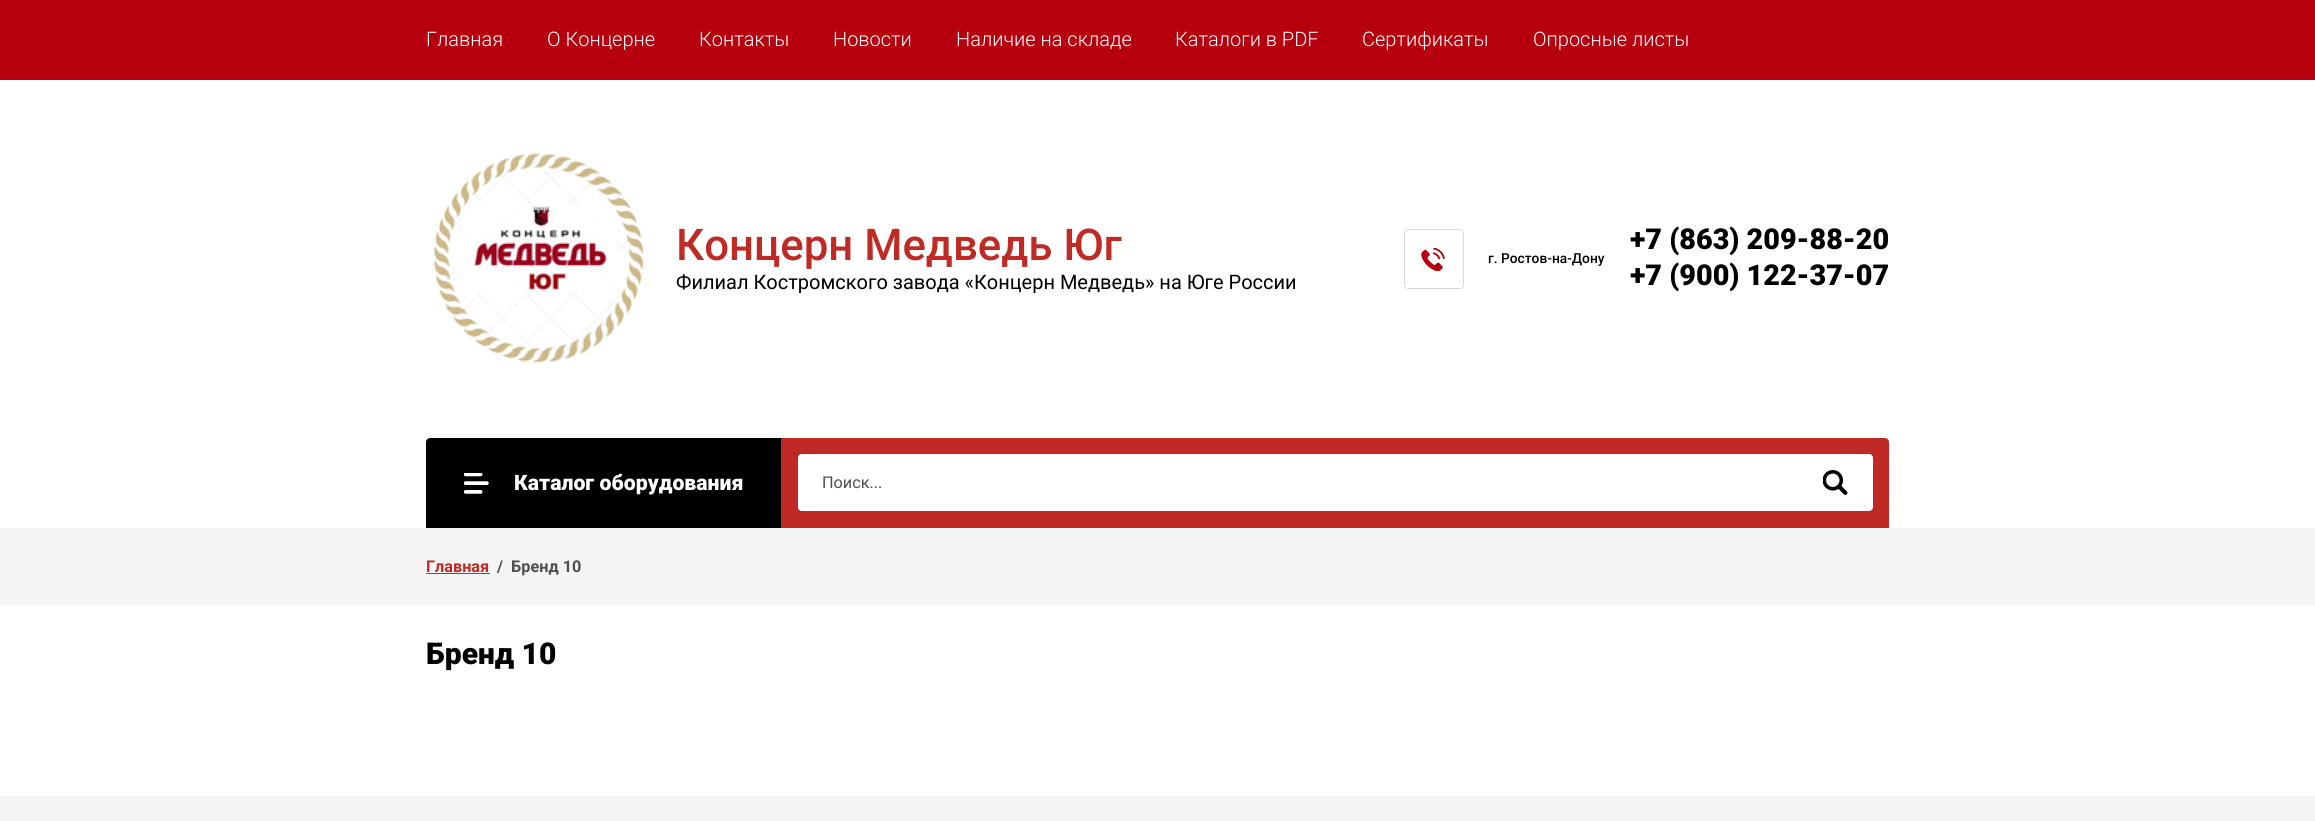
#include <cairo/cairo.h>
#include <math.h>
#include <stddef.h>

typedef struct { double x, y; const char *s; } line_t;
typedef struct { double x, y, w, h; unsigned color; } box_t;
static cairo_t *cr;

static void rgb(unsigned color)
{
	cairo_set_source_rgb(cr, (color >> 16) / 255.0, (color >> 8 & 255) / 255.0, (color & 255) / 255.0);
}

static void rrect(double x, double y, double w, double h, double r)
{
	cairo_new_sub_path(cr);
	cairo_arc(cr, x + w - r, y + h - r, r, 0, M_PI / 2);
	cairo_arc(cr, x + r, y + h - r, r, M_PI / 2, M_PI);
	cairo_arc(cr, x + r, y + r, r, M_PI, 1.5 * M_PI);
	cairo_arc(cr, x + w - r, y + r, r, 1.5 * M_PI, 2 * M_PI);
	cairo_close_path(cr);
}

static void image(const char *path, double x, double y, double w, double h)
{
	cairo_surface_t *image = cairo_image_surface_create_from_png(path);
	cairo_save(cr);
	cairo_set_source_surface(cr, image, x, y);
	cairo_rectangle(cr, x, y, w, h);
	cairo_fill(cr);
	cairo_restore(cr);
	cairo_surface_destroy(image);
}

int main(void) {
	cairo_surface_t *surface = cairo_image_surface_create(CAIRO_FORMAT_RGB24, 2315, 821);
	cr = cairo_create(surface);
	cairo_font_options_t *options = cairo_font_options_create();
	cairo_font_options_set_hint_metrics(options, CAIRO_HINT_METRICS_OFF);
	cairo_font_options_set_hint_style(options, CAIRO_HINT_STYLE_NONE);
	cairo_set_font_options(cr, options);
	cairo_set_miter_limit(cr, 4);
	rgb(0xffffff);
	cairo_paint(cr);
	rgb(0xb6000d);
	cairo_rectangle(cr, 0, 0, 2315, 80);
	cairo_fill(cr);
	image("img/1.png", 433, 153, 211, 210);
	image("img/2.png", 1421, 248, 24, 23);
	rrect(1404.5, 229.5, 59, 59, 3.5);
	rgb(0xd9d9d9);
	cairo_set_line_width(cr, 1);
	cairo_stroke(cr);
	rgb(0x000000);
	cairo_new_path(cr);
	cairo_move_to(cr, 430, 438);
	cairo_line_to(cr, 781, 438);
	cairo_line_to(cr, 781, 528);
	cairo_line_to(cr, 426, 528);
	cairo_line_to(cr, 426, 442);
	cairo_curve_to(cr, 426, 440, 428, 438, 430, 438);
	cairo_close_path(cr);
	cairo_fill(cr);
	image("img/3.png", 464, 473, 25, 21);
	rgb(0xbf2a24);
	cairo_new_path(cr);
	cairo_move_to(cr, 781, 438);
	cairo_line_to(cr, 1885, 438);
	cairo_curve_to(cr, 1887, 438, 1889, 440, 1889, 442);
	cairo_line_to(cr, 1889, 528);
	cairo_line_to(cr, 781, 528);
	cairo_close_path(cr);
	cairo_fill(cr);
	rgb(0xffffff);
	rrect(798, 454, 1075, 57, 4);
	cairo_fill(cr);
	cairo_new_path(cr);
	cairo_move_to(cr, 802, 454);
	cairo_line_to(cr, 1798, 454);
	cairo_line_to(cr, 1798, 511);
	cairo_line_to(cr, 802, 511);
	cairo_curve_to(cr, 800, 511, 798, 509, 798, 507);
	cairo_line_to(cr, 798, 458);
	cairo_curve_to(cr, 798, 456, 800, 454, 802, 454);
	cairo_close_path(cr);
	cairo_fill(cr);
	image("img/4.png", 1823, 470, 25, 25);
	{
		static const box_t items[] = {
			{0, 528, 2315, 77, 0xf5f5f5},
			{426, 573, 64, 1, 0xbf2a24},
			{0, 796, 2315, 25, 0xf5f5f5},
		};
		for (size_t i = 0; i < sizeof items / sizeof *items; i++) {
			rgb(items[i].color);
			cairo_rectangle(cr, items[i].x, items[i].y, items[i].w, items[i].h);
			cairo_fill(cr);
		}
	}
	cairo_select_font_face(cr, "Roboto Light", CAIRO_FONT_SLANT_NORMAL, CAIRO_FONT_WEIGHT_NORMAL);
	cairo_set_font_size(cr, 20);
	rgb(0xffffff);
	{
		static const line_t items[] = {
			{426, 46, "Главная"},
			{547, 46, "О Концерне"},
			{699, 46, "Контакты"},
			{833, 46, "Новости"},
			{956, 46, "Наличие на складе"},
			{1175, 46, "Каталоги в PDF"},
			{1362, 46, "Сертификаты"},
			{1533, 46, "Опросные листы"},
		};
		for (size_t i = 0; i < sizeof items / sizeof *items; i++) {
			cairo_move_to(cr, items[i].x, items[i].y);
			cairo_show_text(cr, items[i].s);
		}
	}
	cairo_select_font_face(cr, "Roboto Medium", CAIRO_FONT_SLANT_NORMAL, CAIRO_FONT_WEIGHT_NORMAL);
	cairo_set_font_size(cr, 43.75);
	rgb(0xbf2a24);
	cairo_move_to(cr, 676, 260);
	cairo_show_text(cr, "Концерн Медведь Юг");
	cairo_select_font_face(cr, "Roboto", CAIRO_FONT_SLANT_NORMAL, CAIRO_FONT_WEIGHT_NORMAL);
	cairo_set_font_size(cr, 20);
	rgb(0x000000);
	cairo_move_to(cr, 676, 289);
	cairo_show_text(cr, "Филиал Костромского завода «Концерн Медведь» на Юге России");
	cairo_select_font_face(cr, "Roboto Medium", CAIRO_FONT_SLANT_NORMAL, CAIRO_FONT_WEIGHT_NORMAL);
	cairo_set_font_size(cr, 13.75);
	cairo_move_to(cr, 1488, 263);
	cairo_show_text(cr, "г. Ростов-на-Дону");
	cairo_select_font_face(cr, "Roboto Black", CAIRO_FONT_SLANT_NORMAL, CAIRO_FONT_WEIGHT_NORMAL);
	cairo_set_font_size(cr, 28.75);
	cairo_move_to(cr, 1630, 249);
	cairo_show_text(cr, "+7 (863) 209-88-20");
	cairo_move_to(cr, 1630, 285);
	cairo_show_text(cr, "+7 (900) 122-37-07");
	cairo_set_font_size(cr, 21.25);
	rgb(0xffffff);
	cairo_move_to(cr, 514, 490);
	cairo_show_text(cr, "Каталог оборудования");
	cairo_select_font_face(cr, "Roboto", CAIRO_FONT_SLANT_NORMAL, CAIRO_FONT_WEIGHT_NORMAL);
	cairo_set_font_size(cr, 16.25);
	rgb(0x4b4e54);
	cairo_move_to(cr, 822, 488);
	cairo_show_text(cr, "Поиск...");
	cairo_select_font_face(cr, "Roboto", CAIRO_FONT_SLANT_NORMAL, CAIRO_FONT_WEIGHT_BOLD);
	rgb(0xbf2a24);
	cairo_move_to(cr, 426, 572);
	cairo_show_text(cr, "Главная");
	rgb(0x4b4e54);
	cairo_move_to(cr, 497, 572);
	cairo_show_text(cr, "/  Бренд 10");
	cairo_select_font_face(cr, "Roboto Black", CAIRO_FONT_SLANT_NORMAL, CAIRO_FONT_WEIGHT_NORMAL);
	cairo_set_font_size(cr, 30);
	rgb(0x000000);
	cairo_move_to(cr, 426, 664);
	cairo_show_text(cr, "Бренд 10");
	cairo_surface_write_to_png(surface, "page.png");
	cairo_font_options_destroy(options);
	cairo_destroy(cr);
	cairo_surface_destroy(surface);
	return 0;
}
